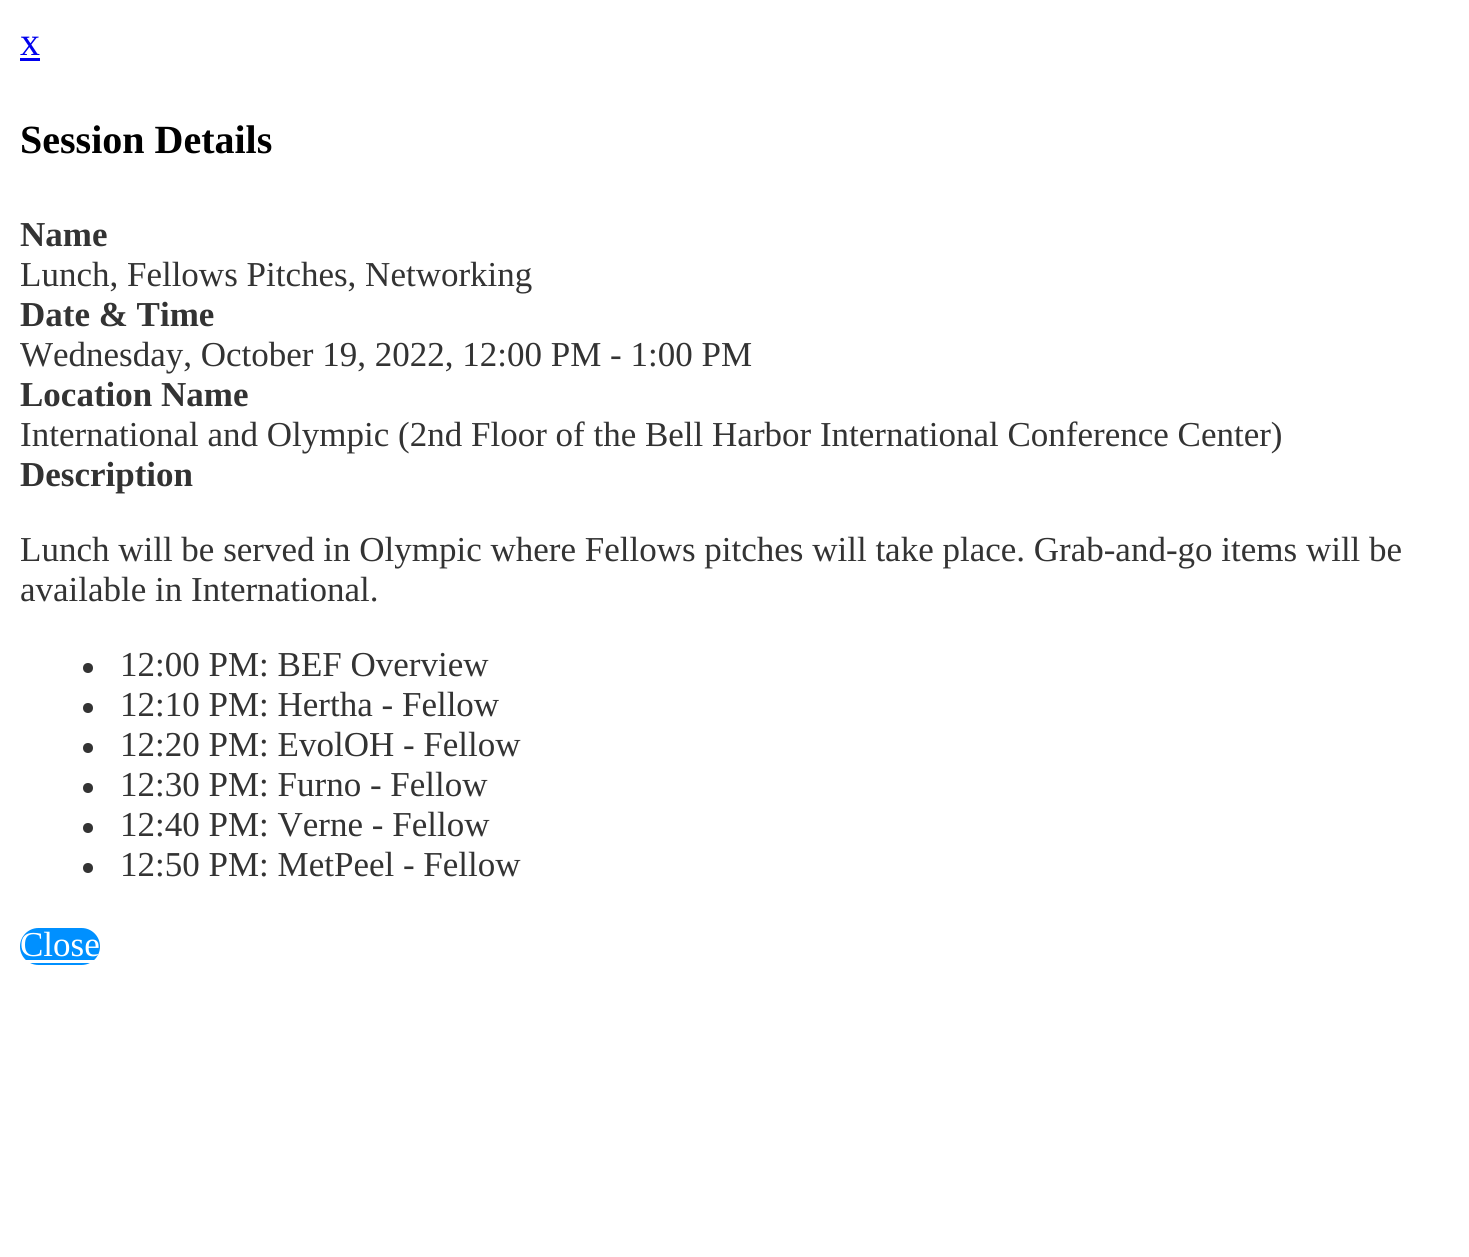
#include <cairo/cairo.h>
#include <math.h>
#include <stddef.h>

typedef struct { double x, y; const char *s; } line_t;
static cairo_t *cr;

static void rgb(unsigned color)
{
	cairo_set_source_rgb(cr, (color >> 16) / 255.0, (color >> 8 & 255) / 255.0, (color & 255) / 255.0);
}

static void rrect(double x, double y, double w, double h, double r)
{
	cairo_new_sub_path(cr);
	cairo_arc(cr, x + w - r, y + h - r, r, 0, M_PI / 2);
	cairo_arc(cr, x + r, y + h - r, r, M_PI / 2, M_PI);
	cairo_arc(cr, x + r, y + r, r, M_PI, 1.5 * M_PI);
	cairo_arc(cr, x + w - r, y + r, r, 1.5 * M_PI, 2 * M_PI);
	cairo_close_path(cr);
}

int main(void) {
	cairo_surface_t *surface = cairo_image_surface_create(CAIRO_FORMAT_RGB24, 1469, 1257);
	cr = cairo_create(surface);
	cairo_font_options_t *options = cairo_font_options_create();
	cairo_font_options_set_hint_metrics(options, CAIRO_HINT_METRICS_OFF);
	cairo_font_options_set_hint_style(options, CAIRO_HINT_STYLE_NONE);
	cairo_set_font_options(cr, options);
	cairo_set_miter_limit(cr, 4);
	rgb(0xffffff);
	cairo_paint(cr);
	rgb(0x0000ee);
	cairo_rectangle(cr, 20, 58, 20, 3);
	cairo_fill(cr);
	rgb(0x333333);
	cairo_arc(cr, 88, 668, 5, 0, 2 * M_PI);
	cairo_fill(cr);
	cairo_arc(cr, 88, 708, 5, 0, 2 * M_PI);
	cairo_fill(cr);
	cairo_arc(cr, 88, 748, 5, 0, 2 * M_PI);
	cairo_fill(cr);
	cairo_arc(cr, 88, 788, 5, 0, 2 * M_PI);
	cairo_fill(cr);
	cairo_arc(cr, 88, 828, 5, 0, 2 * M_PI);
	cairo_fill(cr);
	cairo_arc(cr, 88, 868, 5, 0, 2 * M_PI);
	cairo_fill(cr);
	rgb(0x0090ff);
	rrect(20, 928, 80, 37, 18.5);
	cairo_fill(cr);
	rgb(0xffffff);
	cairo_rectangle(cr, 20, 960, 80, 3);
	cairo_fill(cr);
	cairo_select_font_face(cr, "Liberation Serif", CAIRO_FONT_SLANT_NORMAL, CAIRO_FONT_WEIGHT_NORMAL);
	cairo_set_font_size(cr, 40);
	rgb(0x0000ee);
	cairo_move_to(cr, 20, 55);
	cairo_show_text(cr, "x");
	cairo_select_font_face(cr, "Liberation Serif", CAIRO_FONT_SLANT_NORMAL, CAIRO_FONT_WEIGHT_BOLD);
	rgb(0x000000);
	cairo_move_to(cr, 20, 153);
	cairo_show_text(cr, "Session Details");
	cairo_set_font_size(cr, 35);
	rgb(0x333333);
	cairo_move_to(cr, 20, 246);
	cairo_show_text(cr, "Name");
	cairo_select_font_face(cr, "Liberation Serif", CAIRO_FONT_SLANT_NORMAL, CAIRO_FONT_WEIGHT_NORMAL);
	cairo_move_to(cr, 20, 286);
	cairo_show_text(cr, "Lunch, Fellows Pitches, Networking");
	cairo_select_font_face(cr, "Liberation Serif", CAIRO_FONT_SLANT_NORMAL, CAIRO_FONT_WEIGHT_BOLD);
	cairo_move_to(cr, 20, 326);
	cairo_show_text(cr, "Date & Time");
	cairo_select_font_face(cr, "Liberation Serif", CAIRO_FONT_SLANT_NORMAL, CAIRO_FONT_WEIGHT_NORMAL);
	cairo_move_to(cr, 20, 366);
	cairo_show_text(cr, "Wednesday, October 19, 2022, 12:00 PM - 1:00 PM");
	cairo_select_font_face(cr, "Liberation Serif", CAIRO_FONT_SLANT_NORMAL, CAIRO_FONT_WEIGHT_BOLD);
	cairo_move_to(cr, 20, 406);
	cairo_show_text(cr, "Location Name");
	cairo_select_font_face(cr, "Liberation Serif", CAIRO_FONT_SLANT_NORMAL, CAIRO_FONT_WEIGHT_NORMAL);
	cairo_move_to(cr, 20, 446);
	cairo_show_text(cr, "International and Olympic (2nd Floor of the Bell Harbor International Conference Center)");
	cairo_select_font_face(cr, "Liberation Serif", CAIRO_FONT_SLANT_NORMAL, CAIRO_FONT_WEIGHT_BOLD);
	cairo_move_to(cr, 20, 486);
	cairo_show_text(cr, "Description");
	cairo_select_font_face(cr, "Liberation Serif", CAIRO_FONT_SLANT_NORMAL, CAIRO_FONT_WEIGHT_NORMAL);
	{
		static const line_t items[] = {
			{20, 561, "Lunch will be served in Olympic where Fellows pitches will take place. Grab-and-go items will be"},
			{20, 601, "available in International."},
			{120, 676, "12:00 PM: BEF Overview"},
			{120, 716, "12:10 PM: Hertha - Fellow"},
			{120, 756, "12:20 PM: EvolOH - Fellow"},
			{120, 796, "12:30 PM: Furno - Fellow"},
			{120, 836, "12:40 PM: Verne - Fellow"},
			{120, 876, "12:50 PM: MetPeel - Fellow"},
		};
		for (size_t i = 0; i < sizeof items / sizeof *items; i++) {
			cairo_move_to(cr, items[i].x, items[i].y);
			cairo_show_text(cr, items[i].s);
		}
	}
	rgb(0xffffff);
	cairo_move_to(cr, 20, 956);
	cairo_show_text(cr, "Close");
	cairo_surface_write_to_png(surface, "page.png");
	cairo_font_options_destroy(options);
	cairo_destroy(cr);
	cairo_surface_destroy(surface);
	return 0;
}
